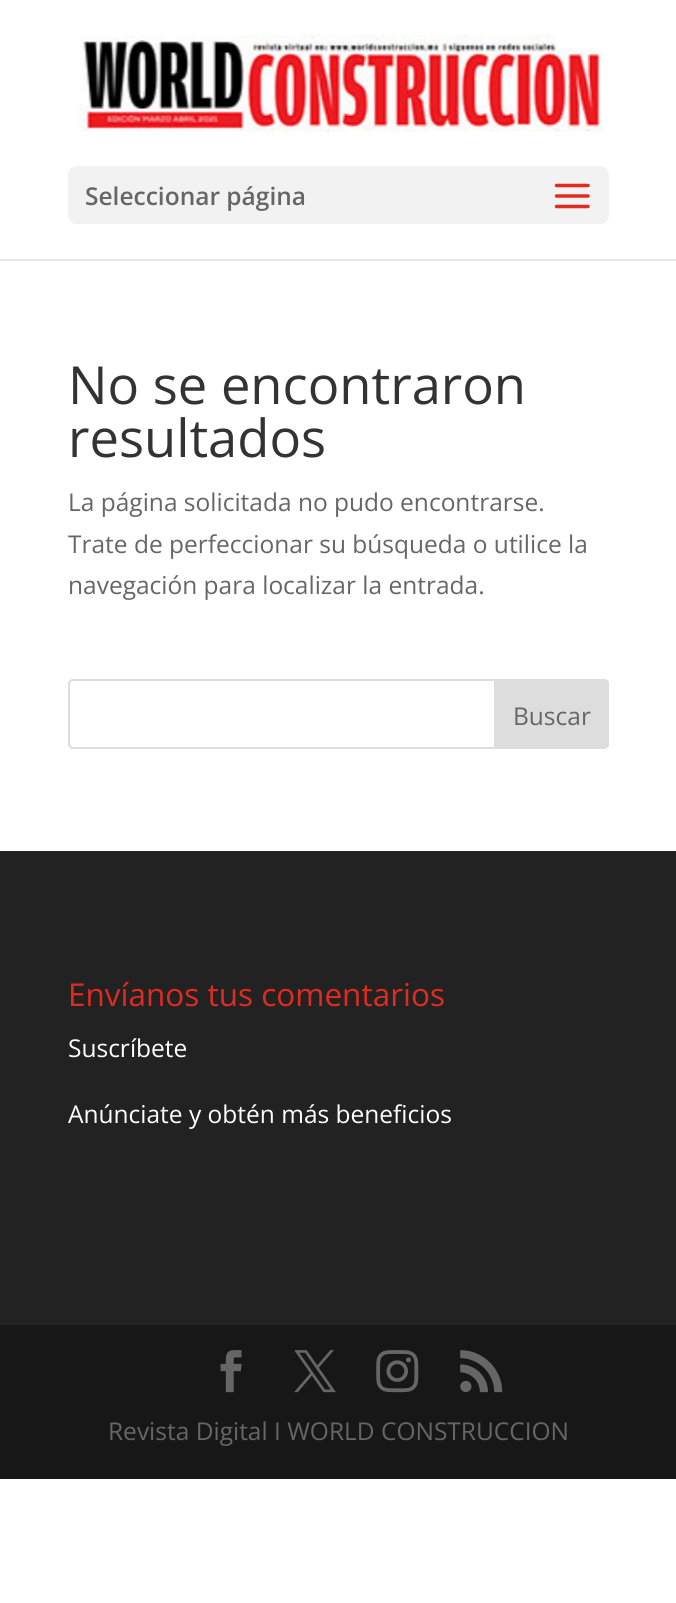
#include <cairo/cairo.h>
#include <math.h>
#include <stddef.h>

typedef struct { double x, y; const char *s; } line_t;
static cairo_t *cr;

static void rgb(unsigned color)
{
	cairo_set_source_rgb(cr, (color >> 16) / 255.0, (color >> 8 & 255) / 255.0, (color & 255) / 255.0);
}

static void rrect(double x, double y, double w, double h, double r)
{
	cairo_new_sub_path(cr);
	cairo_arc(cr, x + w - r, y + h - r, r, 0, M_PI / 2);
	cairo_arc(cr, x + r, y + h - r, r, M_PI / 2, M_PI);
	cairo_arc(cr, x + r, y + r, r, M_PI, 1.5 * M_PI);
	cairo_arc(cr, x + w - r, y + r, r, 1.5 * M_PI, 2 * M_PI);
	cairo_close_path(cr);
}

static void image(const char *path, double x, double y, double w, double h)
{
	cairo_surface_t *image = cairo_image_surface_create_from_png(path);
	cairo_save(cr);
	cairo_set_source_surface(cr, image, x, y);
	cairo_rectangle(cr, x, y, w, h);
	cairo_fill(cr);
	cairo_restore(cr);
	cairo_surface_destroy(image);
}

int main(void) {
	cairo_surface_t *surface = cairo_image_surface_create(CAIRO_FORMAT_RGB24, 676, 1603);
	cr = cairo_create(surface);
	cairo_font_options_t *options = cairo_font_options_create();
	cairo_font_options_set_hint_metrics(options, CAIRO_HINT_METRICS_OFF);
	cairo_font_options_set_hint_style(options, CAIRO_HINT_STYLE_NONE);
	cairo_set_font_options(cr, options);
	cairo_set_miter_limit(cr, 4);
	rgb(0xffffff);
	cairo_paint(cr);
	rgb(0xe6e6e6);
	cairo_rectangle(cr, 0, 259, 676, 2);
	cairo_fill(cr);
	image("img/1.png", 79, 35, 525, 97);
	rgb(0xf2f2f2);
	rrect(68, 166, 541, 58, 9);
	cairo_fill(cr);
	image("img/2.png", 554, 183, 36, 26);
	rrect(69, 680, 539, 68, 4);
	rgb(0xdddddd);
	cairo_stroke(cr);
	cairo_new_path(cr);
	cairo_move_to(cr, 495, 680);
	cairo_line_to(cr, 604, 680);
	cairo_curve_to(cr, 606, 680, 608, 682, 608, 684);
	cairo_line_to(cr, 608, 744);
	cairo_curve_to(cr, 608, 746, 606, 748, 604, 748);
	cairo_line_to(cr, 495, 748);
	cairo_close_path(cr);
	cairo_fill_preserve(cr);
	cairo_stroke(cr);
	rgb(0x222222);
	cairo_rectangle(cr, 0, 851, 676, 474);
	cairo_fill(cr);
	rgb(0x171717);
	cairo_rectangle(cr, 0, 1325, 676, 154);
	cairo_fill(cr);
	image("img/3.png", 220, 1350, 22, 43);
	image("img/4.png", 294, 1350, 42, 43);
	image("img/5.png", 376, 1350, 43, 43);
	image("img/6.png", 460, 1350, 43, 43);
	cairo_select_font_face(cr, "Open Sans SemiBold", CAIRO_FONT_SLANT_NORMAL, CAIRO_FONT_WEIGHT_NORMAL);
	cairo_set_font_size(cr, 24.5);
	rgb(0x666666);
	cairo_move_to(cr, 85, 205);
	cairo_show_text(cr, "Seleccionar página");
	cairo_select_font_face(cr, "Open Sans", CAIRO_FONT_SLANT_NORMAL, CAIRO_FONT_WEIGHT_NORMAL);
	cairo_set_font_size(cr, 52.5);
	rgb(0x333333);
	cairo_move_to(cr, 68, 404);
	cairo_show_text(cr, "No se encontraron");
	cairo_move_to(cr, 68, 457);
	cairo_show_text(cr, "resultados");
	cairo_set_font_size(cr, 24.5);
	rgb(0x666666);
	{
		static const line_t items[] = {
			{68, 511, "La página solicitada no pudo encontrarse."},
			{68, 553, "Trate de perfeccionar su búsqueda o utilice la"},
			{68, 594, "navegación para localizar la entrada."},
			{513, 725, "Buscar"},
		};
		for (size_t i = 0; i < sizeof items / sizeof *items; i++) {
			cairo_move_to(cr, items[i].x, items[i].y);
			cairo_show_text(cr, items[i].s);
		}
	}
	cairo_set_font_size(cr, 31.5);
	rgb(0xe02b20);
	cairo_move_to(cr, 68, 1006);
	cairo_show_text(cr, "Envíanos tus comentarios");
	cairo_set_font_size(cr, 24.5);
	rgb(0xffffff);
	cairo_move_to(cr, 68, 1057);
	cairo_show_text(cr, "Suscríbete");
	cairo_move_to(cr, 68, 1123);
	cairo_show_text(cr, "Anúnciate y obtén más beneficios");
	rgb(0x666666);
	cairo_move_to(cr, 108, 1440);
	cairo_show_text(cr, "Revista Digital I WORLD CONSTRUCCION");
	cairo_surface_write_to_png(surface, "page.png");
	cairo_font_options_destroy(options);
	cairo_destroy(cr);
	cairo_surface_destroy(surface);
	return 0;
}
